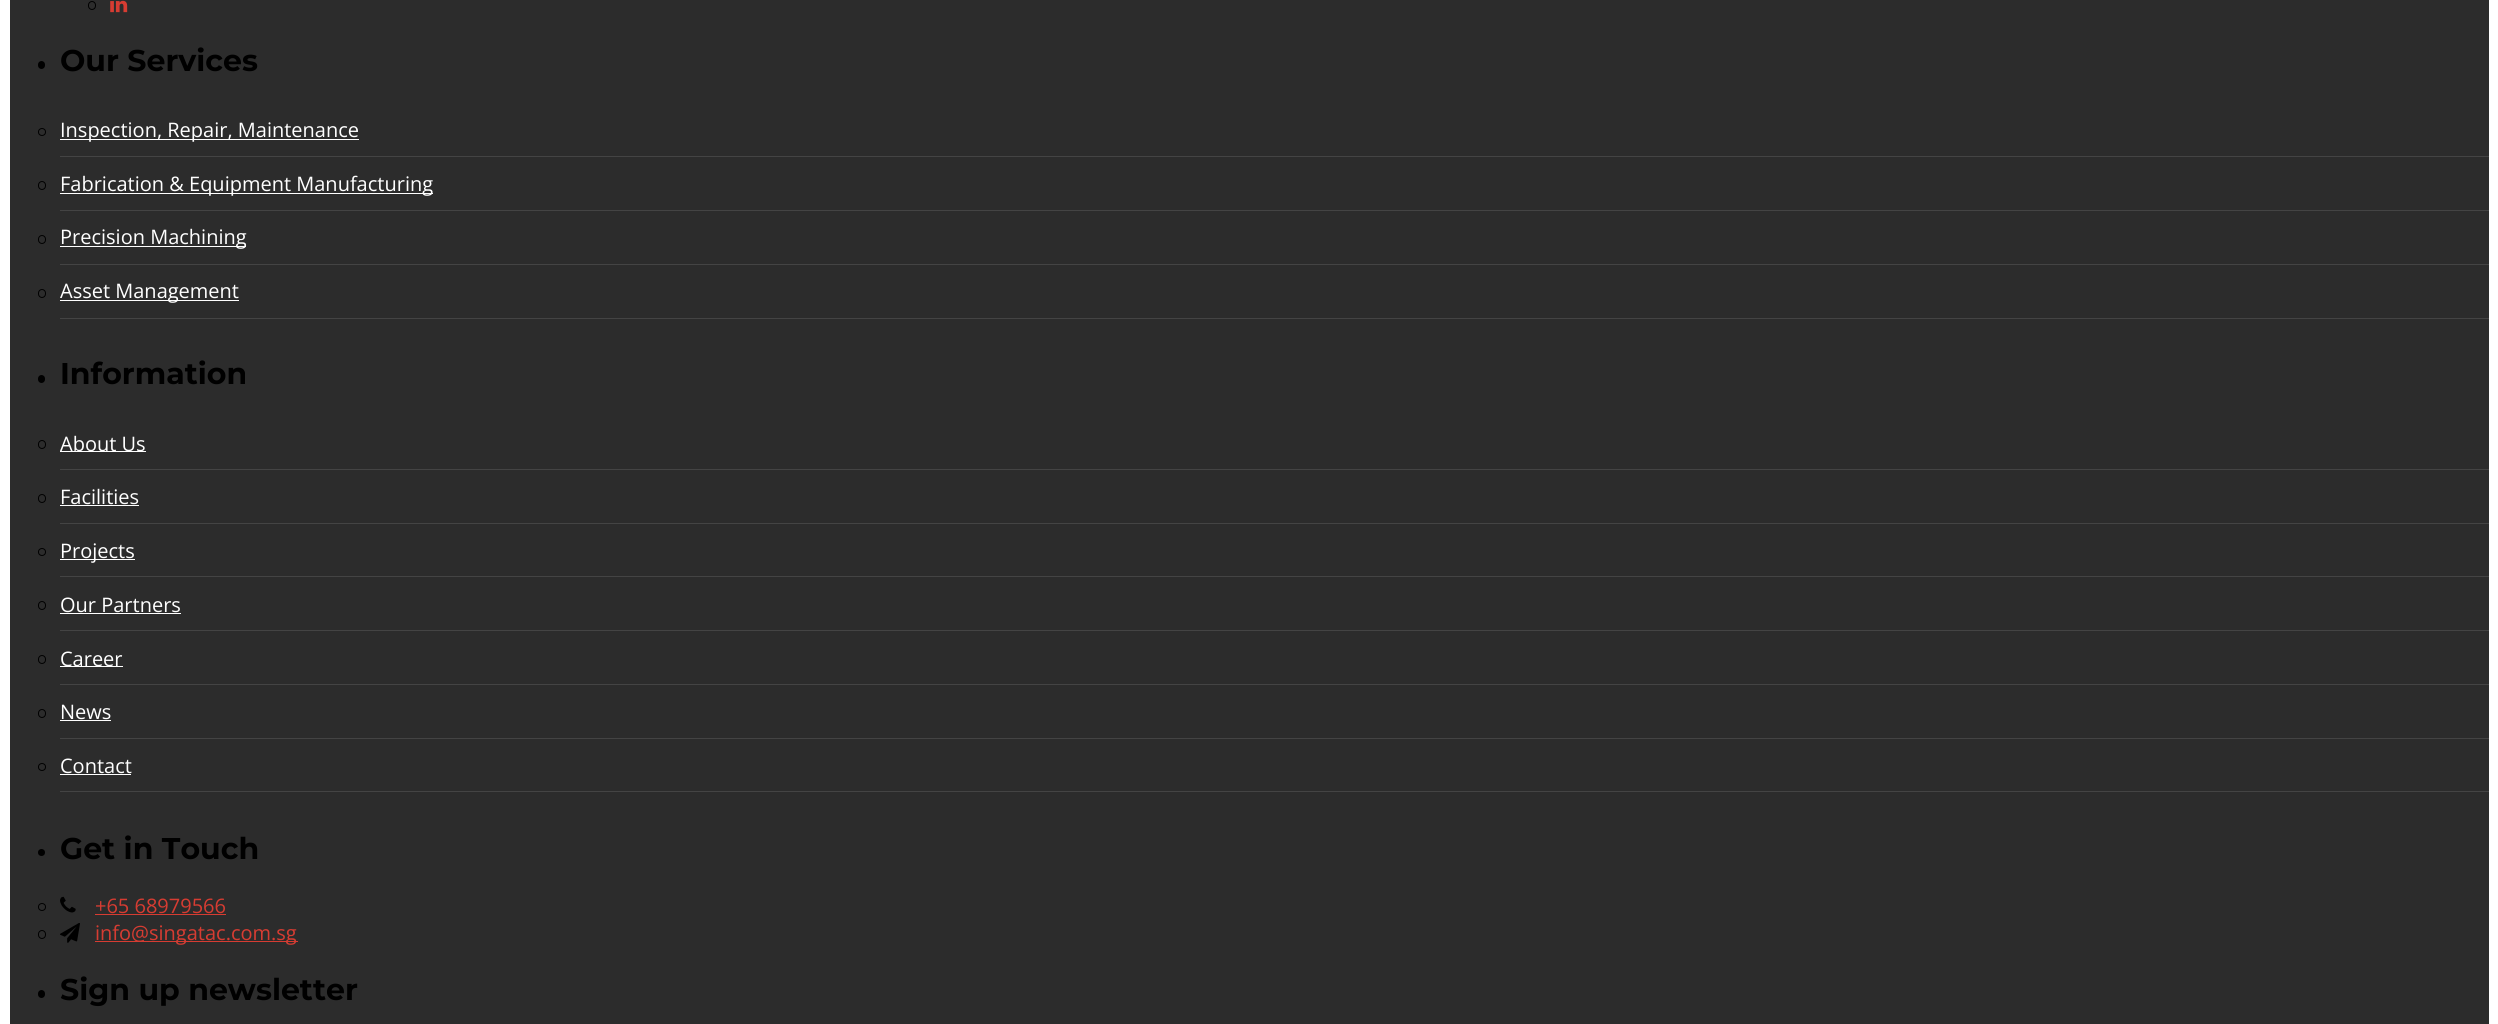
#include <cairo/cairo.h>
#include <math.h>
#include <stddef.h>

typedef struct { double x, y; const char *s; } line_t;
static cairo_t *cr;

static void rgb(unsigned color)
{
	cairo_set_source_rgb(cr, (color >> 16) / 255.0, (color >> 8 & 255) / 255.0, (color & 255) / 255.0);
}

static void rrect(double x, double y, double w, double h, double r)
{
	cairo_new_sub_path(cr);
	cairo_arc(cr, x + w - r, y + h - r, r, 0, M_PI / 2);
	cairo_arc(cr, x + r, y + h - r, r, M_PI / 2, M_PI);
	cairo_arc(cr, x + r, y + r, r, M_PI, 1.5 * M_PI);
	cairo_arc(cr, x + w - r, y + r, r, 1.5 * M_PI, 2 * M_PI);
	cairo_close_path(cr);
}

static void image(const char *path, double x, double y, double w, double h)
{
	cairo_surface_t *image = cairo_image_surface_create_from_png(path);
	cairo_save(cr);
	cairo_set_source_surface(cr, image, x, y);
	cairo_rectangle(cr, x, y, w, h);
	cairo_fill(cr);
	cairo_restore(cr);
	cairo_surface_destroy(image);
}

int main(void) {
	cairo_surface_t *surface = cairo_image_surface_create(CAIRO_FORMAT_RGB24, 2498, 1024);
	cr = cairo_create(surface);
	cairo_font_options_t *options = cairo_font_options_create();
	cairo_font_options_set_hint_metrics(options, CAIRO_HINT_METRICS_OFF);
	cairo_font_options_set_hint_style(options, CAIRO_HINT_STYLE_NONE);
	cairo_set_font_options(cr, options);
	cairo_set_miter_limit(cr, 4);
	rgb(0xffffff);
	cairo_paint(cr);
	rgb(0x2c2c2c);
	cairo_rectangle(cr, 10, 0, 2479, 1024);
	cairo_fill(cr);
	rrect(88.5, 1.5, 7, 8, 3.5);
	rgb(0x000000);
	cairo_set_line_width(cr, 1);
	cairo_stroke(cr);
	image("img/1.png", 110, 0, 18, 13);
	rrect(38, 61, 7, 8, 3.5);
	cairo_fill(cr);
	cairo_arc(cr, 42, 132, 3.5, 0, 2 * M_PI);
	cairo_stroke(cr);
	rgb(0x444444);
	cairo_rectangle(cr, 60, 156, 2429, 1);
	cairo_fill(cr);
	rgb(0xffffff);
	cairo_rectangle(cr, 60, 139, 299, 1);
	cairo_fill(cr);
	rrect(38.5, 181.5, 7, 8, 3.5);
	rgb(0x000000);
	cairo_stroke(cr);
	rgb(0x444444);
	cairo_rectangle(cr, 60, 210, 2429, 1);
	cairo_fill(cr);
	rgb(0xffffff);
	cairo_rectangle(cr, 60, 193, 373, 1);
	cairo_fill(cr);
	rrect(38.5, 235.5, 7, 8, 3.5);
	rgb(0x000000);
	cairo_stroke(cr);
	rgb(0x444444);
	cairo_rectangle(cr, 60, 264, 2429, 1);
	cairo_fill(cr);
	rgb(0xffffff);
	cairo_rectangle(cr, 60, 246, 186, 1);
	cairo_fill(cr);
	rrect(38.5, 289.5, 7, 8, 3.5);
	rgb(0x000000);
	cairo_stroke(cr);
	rgb(0x444444);
	cairo_rectangle(cr, 60, 318, 2429, 1);
	cairo_fill(cr);
	rgb(0xffffff);
	cairo_rectangle(cr, 60, 300, 179, 1);
	cairo_fill(cr);
	rgb(0x000000);
	rrect(38, 375, 7, 8, 3.5);
	cairo_fill(cr);
	rrect(38.5, 440.5, 7, 8, 3.5);
	cairo_stroke(cr);
	rgb(0x444444);
	cairo_rectangle(cr, 60, 469, 2429, 1);
	cairo_fill(cr);
	rgb(0xffffff);
	cairo_rectangle(cr, 60, 451, 86, 1);
	cairo_fill(cr);
	rrect(38.5, 494.5, 7, 8, 3.5);
	rgb(0x000000);
	cairo_stroke(cr);
	rgb(0x444444);
	cairo_rectangle(cr, 60, 523, 2429, 1);
	cairo_fill(cr);
	rgb(0xffffff);
	cairo_rectangle(cr, 60, 505, 79, 1);
	cairo_fill(cr);
	cairo_arc(cr, 42, 552, 3.5, 0, 2 * M_PI);
	rgb(0x000000);
	cairo_stroke(cr);
	rgb(0x444444);
	cairo_rectangle(cr, 60, 576, 2429, 1);
	cairo_fill(cr);
	rgb(0xffffff);
	cairo_rectangle(cr, 60, 559, 75, 1);
	cairo_fill(cr);
	rrect(38.5, 601.5, 7, 8, 3.5);
	rgb(0x000000);
	cairo_stroke(cr);
	rgb(0x444444);
	cairo_rectangle(cr, 60, 630, 2429, 1);
	cairo_fill(cr);
	rgb(0xffffff);
	cairo_rectangle(cr, 60, 613, 121, 1);
	cairo_fill(cr);
	rrect(38.5, 655.5, 7, 8, 3.5);
	rgb(0x000000);
	cairo_stroke(cr);
	rgb(0x444444);
	cairo_rectangle(cr, 60, 684, 2429, 1);
	cairo_fill(cr);
	rgb(0xffffff);
	cairo_rectangle(cr, 60, 666, 63, 1);
	cairo_fill(cr);
	rrect(38.5, 709.5, 7, 8, 3.5);
	rgb(0x000000);
	cairo_stroke(cr);
	rgb(0x444444);
	cairo_rectangle(cr, 60, 738, 2429, 1);
	cairo_fill(cr);
	rgb(0xffffff);
	cairo_rectangle(cr, 60, 720, 51, 1);
	cairo_fill(cr);
	cairo_arc(cr, 42, 767, 3.5, 0, 2 * M_PI);
	rgb(0x000000);
	cairo_stroke(cr);
	rgb(0x444444);
	cairo_rectangle(cr, 60, 791, 2429, 1);
	cairo_fill(cr);
	rgb(0xffffff);
	cairo_rectangle(cr, 60, 774, 71, 1);
	cairo_fill(cr);
	rgb(0x000000);
	cairo_arc(cr, 41.5, 852.5, 3.5, 0, 2 * M_PI);
	cairo_fill(cr);
	cairo_arc(cr, 42, 907, 3.5, 0, 2 * M_PI);
	cairo_stroke(cr);
	image("img/2.png", 60, 896, 16, 17);
	rgb(0xd73c32);
	cairo_rectangle(cr, 95, 914, 131, 1);
	cairo_fill(cr);
	rrect(38.5, 930.5, 7, 8, 3.5);
	rgb(0x000000);
	cairo_stroke(cr);
	image("img/3.png", 60, 923, 20, 20);
	rgb(0xd73c32);
	cairo_rectangle(cr, 95, 941, 203, 1);
	cairo_fill(cr);
	rgb(0x000000);
	rrect(38, 990, 7, 8, 3.5);
	cairo_fill(cr);
	cairo_select_font_face(cr, "Montserrat", CAIRO_FONT_SLANT_NORMAL, CAIRO_FONT_WEIGHT_BOLD);
	cairo_set_font_size(cr, 30);
	cairo_move_to(cr, 60, 71);
	cairo_show_text(cr, "Our Services");
	cairo_select_font_face(cr, "Open Sans", CAIRO_FONT_SLANT_NORMAL, CAIRO_FONT_WEIGHT_NORMAL);
	cairo_set_font_size(cr, 20);
	rgb(0xffffff);
	{
		static const line_t items[] = {
			{60, 137, "Inspection, Repair, Maintenance"},
			{60, 191, "Fabrication & Equipment Manufacturing"},
			{60, 244, "Precision Machining"},
			{60, 298, "Asset Management"},
		};
		for (size_t i = 0; i < sizeof items / sizeof *items; i++) {
			cairo_move_to(cr, items[i].x, items[i].y);
			cairo_show_text(cr, items[i].s);
		}
	}
	cairo_select_font_face(cr, "Montserrat", CAIRO_FONT_SLANT_NORMAL, CAIRO_FONT_WEIGHT_BOLD);
	cairo_set_font_size(cr, 30);
	rgb(0x000000);
	cairo_move_to(cr, 60, 384);
	cairo_show_text(cr, "Information");
	cairo_select_font_face(cr, "Open Sans", CAIRO_FONT_SLANT_NORMAL, CAIRO_FONT_WEIGHT_NORMAL);
	cairo_set_font_size(cr, 20);
	rgb(0xffffff);
	{
		static const line_t items[] = {
			{60, 451, "About Us"},
			{60, 504, "Facilities"},
			{60, 558, "Projects"},
			{60, 612, "Our Partners"},
			{60, 666, "Career"},
			{60, 719, "News"},
			{60, 773, "Contact"},
		};
		for (size_t i = 0; i < sizeof items / sizeof *items; i++) {
			cairo_move_to(cr, items[i].x, items[i].y);
			cairo_show_text(cr, items[i].s);
		}
	}
	cairo_select_font_face(cr, "Montserrat", CAIRO_FONT_SLANT_NORMAL, CAIRO_FONT_WEIGHT_BOLD);
	cairo_set_font_size(cr, 30);
	rgb(0x000000);
	cairo_move_to(cr, 60, 859);
	cairo_show_text(cr, "Get in Touch");
	cairo_select_font_face(cr, "Open Sans", CAIRO_FONT_SLANT_NORMAL, CAIRO_FONT_WEIGHT_NORMAL);
	cairo_set_font_size(cr, 20);
	rgb(0xd73c32);
	cairo_move_to(cr, 95, 913);
	cairo_show_text(cr, "+65 68979566");
	cairo_move_to(cr, 95, 940);
	cairo_show_text(cr, "info@singatac.com.sg");
	cairo_select_font_face(cr, "Montserrat", CAIRO_FONT_SLANT_NORMAL, CAIRO_FONT_WEIGHT_BOLD);
	cairo_set_font_size(cr, 30);
	rgb(0x000000);
	cairo_move_to(cr, 60, 1000);
	cairo_show_text(cr, "Sign up newsletter");
	cairo_surface_write_to_png(surface, "page.png");
	cairo_font_options_destroy(options);
	cairo_destroy(cr);
	cairo_surface_destroy(surface);
	return 0;
}
